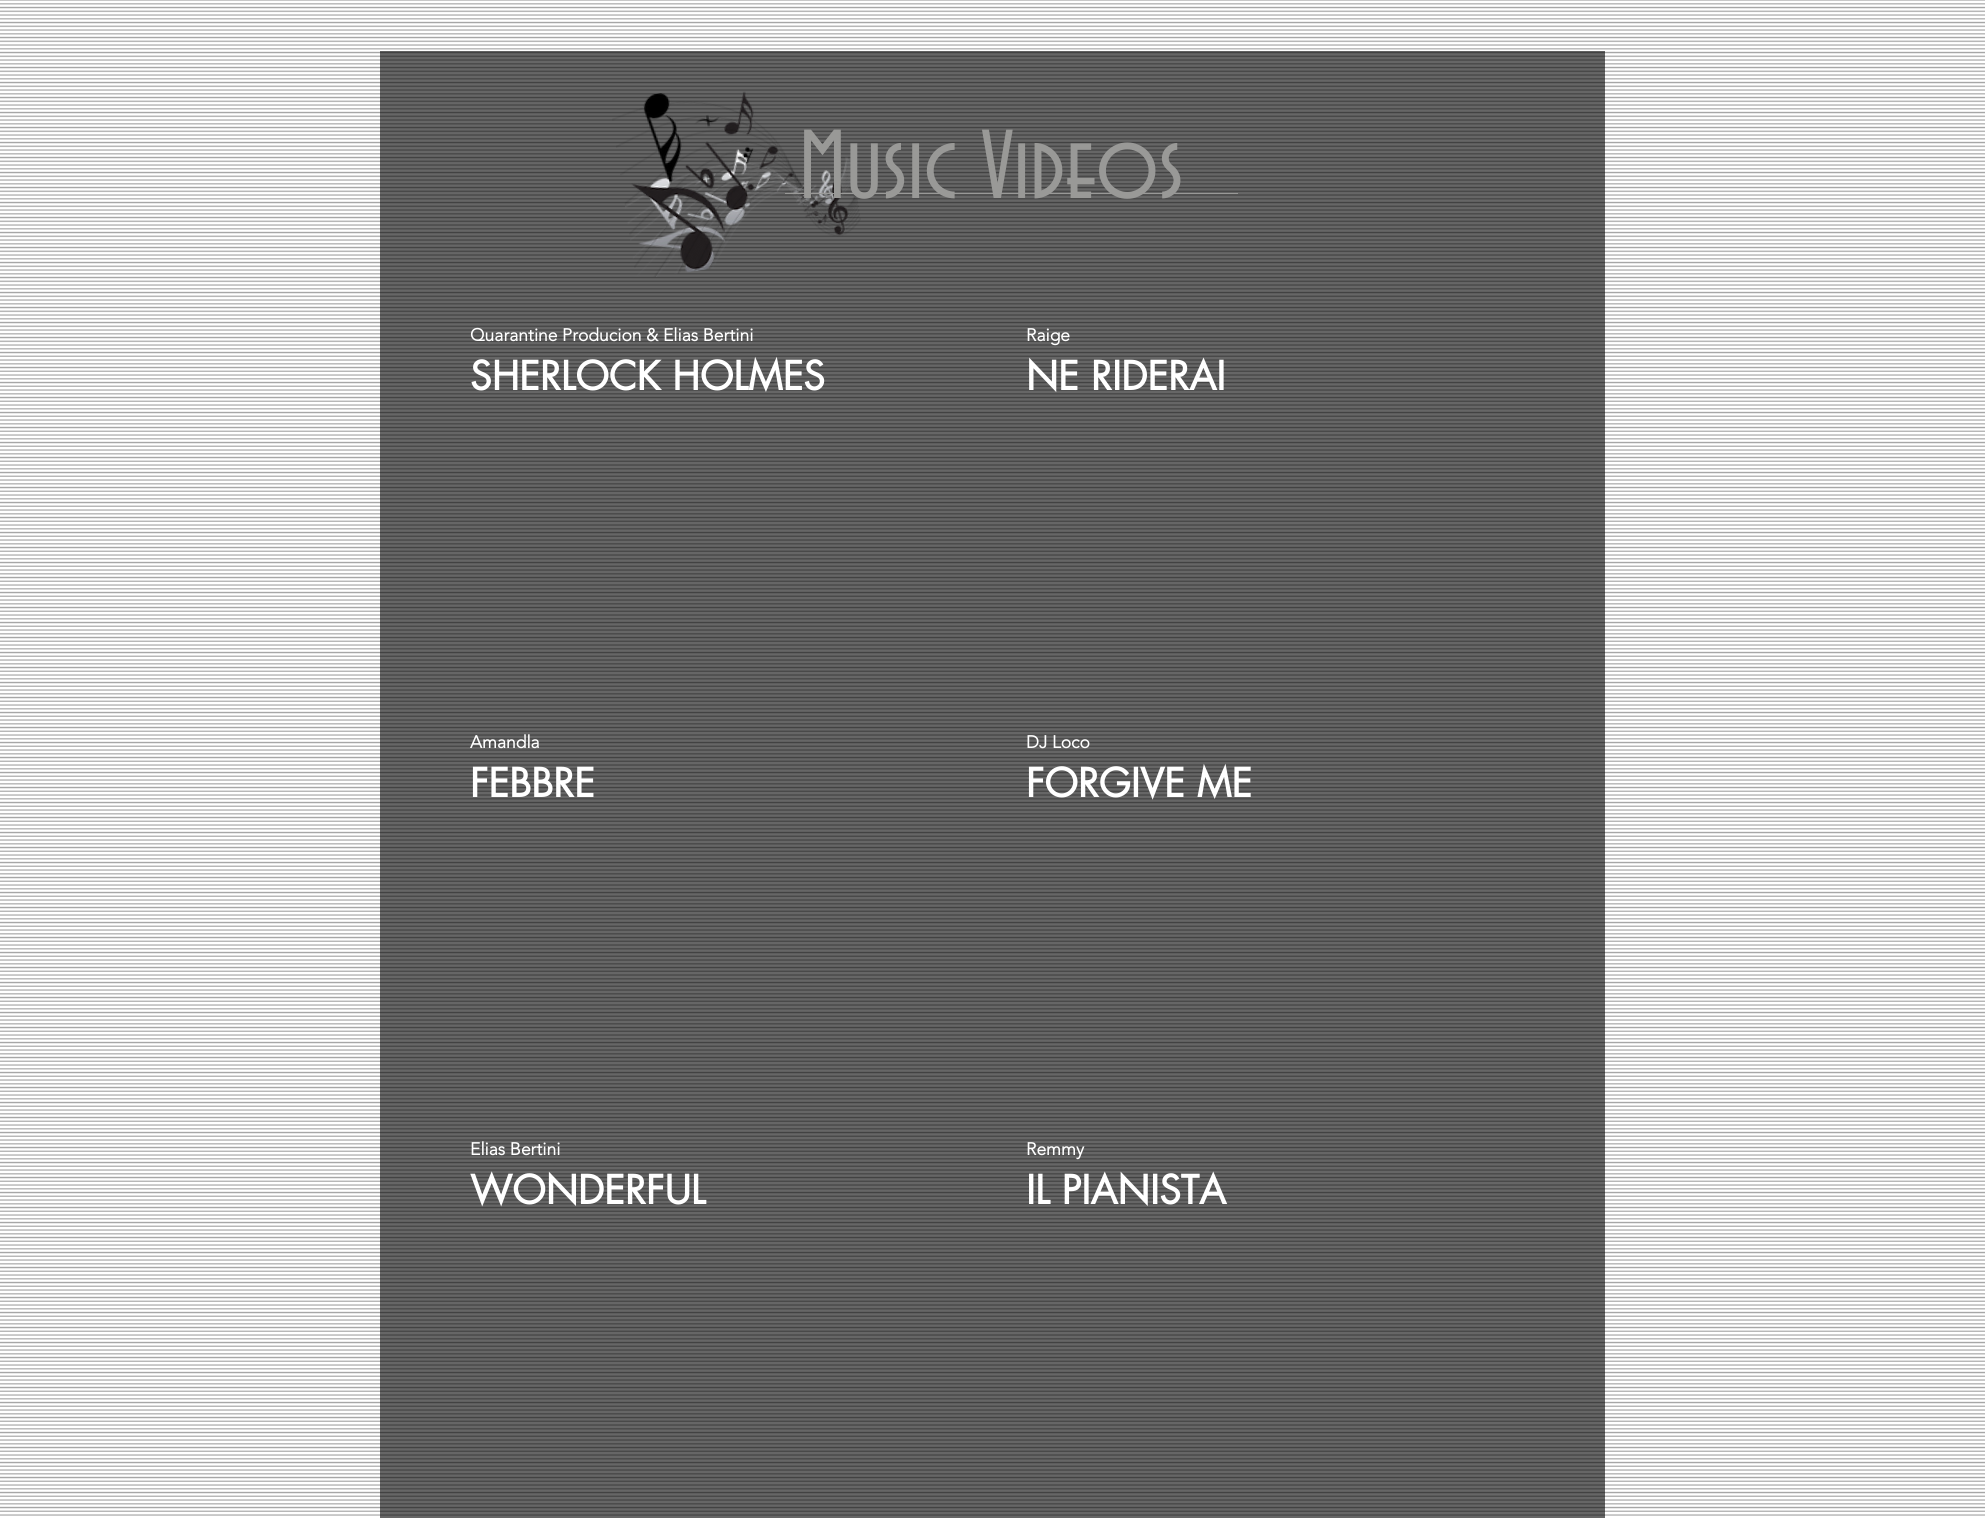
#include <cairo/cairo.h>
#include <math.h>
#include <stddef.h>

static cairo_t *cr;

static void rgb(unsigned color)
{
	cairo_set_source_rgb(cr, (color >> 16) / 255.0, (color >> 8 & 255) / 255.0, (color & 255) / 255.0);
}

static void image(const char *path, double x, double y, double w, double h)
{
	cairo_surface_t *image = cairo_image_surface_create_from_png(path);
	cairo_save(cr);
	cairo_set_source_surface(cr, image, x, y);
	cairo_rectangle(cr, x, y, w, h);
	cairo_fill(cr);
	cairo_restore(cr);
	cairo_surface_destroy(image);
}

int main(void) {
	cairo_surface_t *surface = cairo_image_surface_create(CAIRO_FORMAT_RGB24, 1985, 1518);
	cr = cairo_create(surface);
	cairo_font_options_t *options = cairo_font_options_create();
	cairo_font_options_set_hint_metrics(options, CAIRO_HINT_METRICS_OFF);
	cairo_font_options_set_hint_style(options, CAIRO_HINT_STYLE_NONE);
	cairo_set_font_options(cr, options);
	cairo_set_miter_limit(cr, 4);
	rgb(0xffffff);
	cairo_paint(cr);
	image("img/1.png", 0, 0, 1985, 1516);
	cairo_set_source_rgba(cr, 0, 0, 0, 0.6);
	cairo_rectangle(cr, 380, 51, 1225, 1467);
	cairo_fill(cr);
	image("img/2.png", 612, 91, 249, 186);
	rgb(0x999997);
	cairo_rectangle(cr, 785, 193, 453, 1);
	cairo_fill(cr);
	cairo_select_font_face(cr, "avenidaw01", CAIRO_FONT_SLANT_NORMAL, CAIRO_FONT_WEIGHT_NORMAL);
	cairo_set_font_size(cr, 102.5);
	cairo_move_to(cr, 799, 198);
	cairo_show_text(cr, "Music Videos");
	cairo_select_font_face(cr, "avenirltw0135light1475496", CAIRO_FONT_SLANT_NORMAL, CAIRO_FONT_WEIGHT_BOLD);
	cairo_set_font_size(cr, 17.5);
	rgb(0xffffff);
	cairo_move_to(cr, 470, 341);
	cairo_show_text(cr, "Quarantine Producion & Elias Bertini");
	cairo_select_font_face(cr, "futura", CAIRO_FONT_SLANT_NORMAL, CAIRO_FONT_WEIGHT_BOLD);
	cairo_set_font_size(cr, 38.75);
	cairo_move_to(cr, 470, 390);
	cairo_show_text(cr, "SHERLOCK HOLMES");
	cairo_select_font_face(cr, "avenirltw0135light1475496", CAIRO_FONT_SLANT_NORMAL, CAIRO_FONT_WEIGHT_BOLD);
	cairo_set_font_size(cr, 17.5);
	cairo_move_to(cr, 470, 748);
	cairo_show_text(cr, "Amandla");
	cairo_select_font_face(cr, "futura", CAIRO_FONT_SLANT_NORMAL, CAIRO_FONT_WEIGHT_BOLD);
	cairo_set_font_size(cr, 38.75);
	cairo_move_to(cr, 470, 797);
	cairo_show_text(cr, "FEBBRE");
	cairo_select_font_face(cr, "avenirltw0135light1475496", CAIRO_FONT_SLANT_NORMAL, CAIRO_FONT_WEIGHT_BOLD);
	cairo_set_font_size(cr, 17.5);
	cairo_move_to(cr, 470, 1155);
	cairo_show_text(cr, "Elias Bertini");
	cairo_select_font_face(cr, "futura", CAIRO_FONT_SLANT_NORMAL, CAIRO_FONT_WEIGHT_BOLD);
	cairo_set_font_size(cr, 38.75);
	cairo_move_to(cr, 470, 1204);
	cairo_show_text(cr, "WONDERFUL");
	cairo_select_font_face(cr, "avenirltw0135light1475496", CAIRO_FONT_SLANT_NORMAL, CAIRO_FONT_WEIGHT_BOLD);
	cairo_set_font_size(cr, 17.5);
	cairo_move_to(cr, 1026, 341);
	cairo_show_text(cr, "Raige");
	cairo_select_font_face(cr, "futura", CAIRO_FONT_SLANT_NORMAL, CAIRO_FONT_WEIGHT_BOLD);
	cairo_set_font_size(cr, 38.75);
	cairo_move_to(cr, 1026, 390);
	cairo_show_text(cr, "NE RIDERAI");
	cairo_select_font_face(cr, "avenirltw0135light1475496", CAIRO_FONT_SLANT_NORMAL, CAIRO_FONT_WEIGHT_BOLD);
	cairo_set_font_size(cr, 17.5);
	cairo_move_to(cr, 1026, 748);
	cairo_show_text(cr, "DJ Loco");
	cairo_select_font_face(cr, "futura", CAIRO_FONT_SLANT_NORMAL, CAIRO_FONT_WEIGHT_BOLD);
	cairo_set_font_size(cr, 38.75);
	cairo_move_to(cr, 1026, 797);
	cairo_show_text(cr, "FORGIVE ME");
	cairo_select_font_face(cr, "avenirltw0135light1475496", CAIRO_FONT_SLANT_NORMAL, CAIRO_FONT_WEIGHT_BOLD);
	cairo_set_font_size(cr, 17.5);
	cairo_move_to(cr, 1026, 1155);
	cairo_show_text(cr, "Remmy");
	cairo_select_font_face(cr, "futura", CAIRO_FONT_SLANT_NORMAL, CAIRO_FONT_WEIGHT_BOLD);
	cairo_set_font_size(cr, 38.75);
	cairo_move_to(cr, 1026, 1204);
	cairo_show_text(cr, "IL PIANISTA");
	cairo_surface_write_to_png(surface, "page.png");
	cairo_font_options_destroy(options);
	cairo_destroy(cr);
	cairo_surface_destroy(surface);
	return 0;
}
